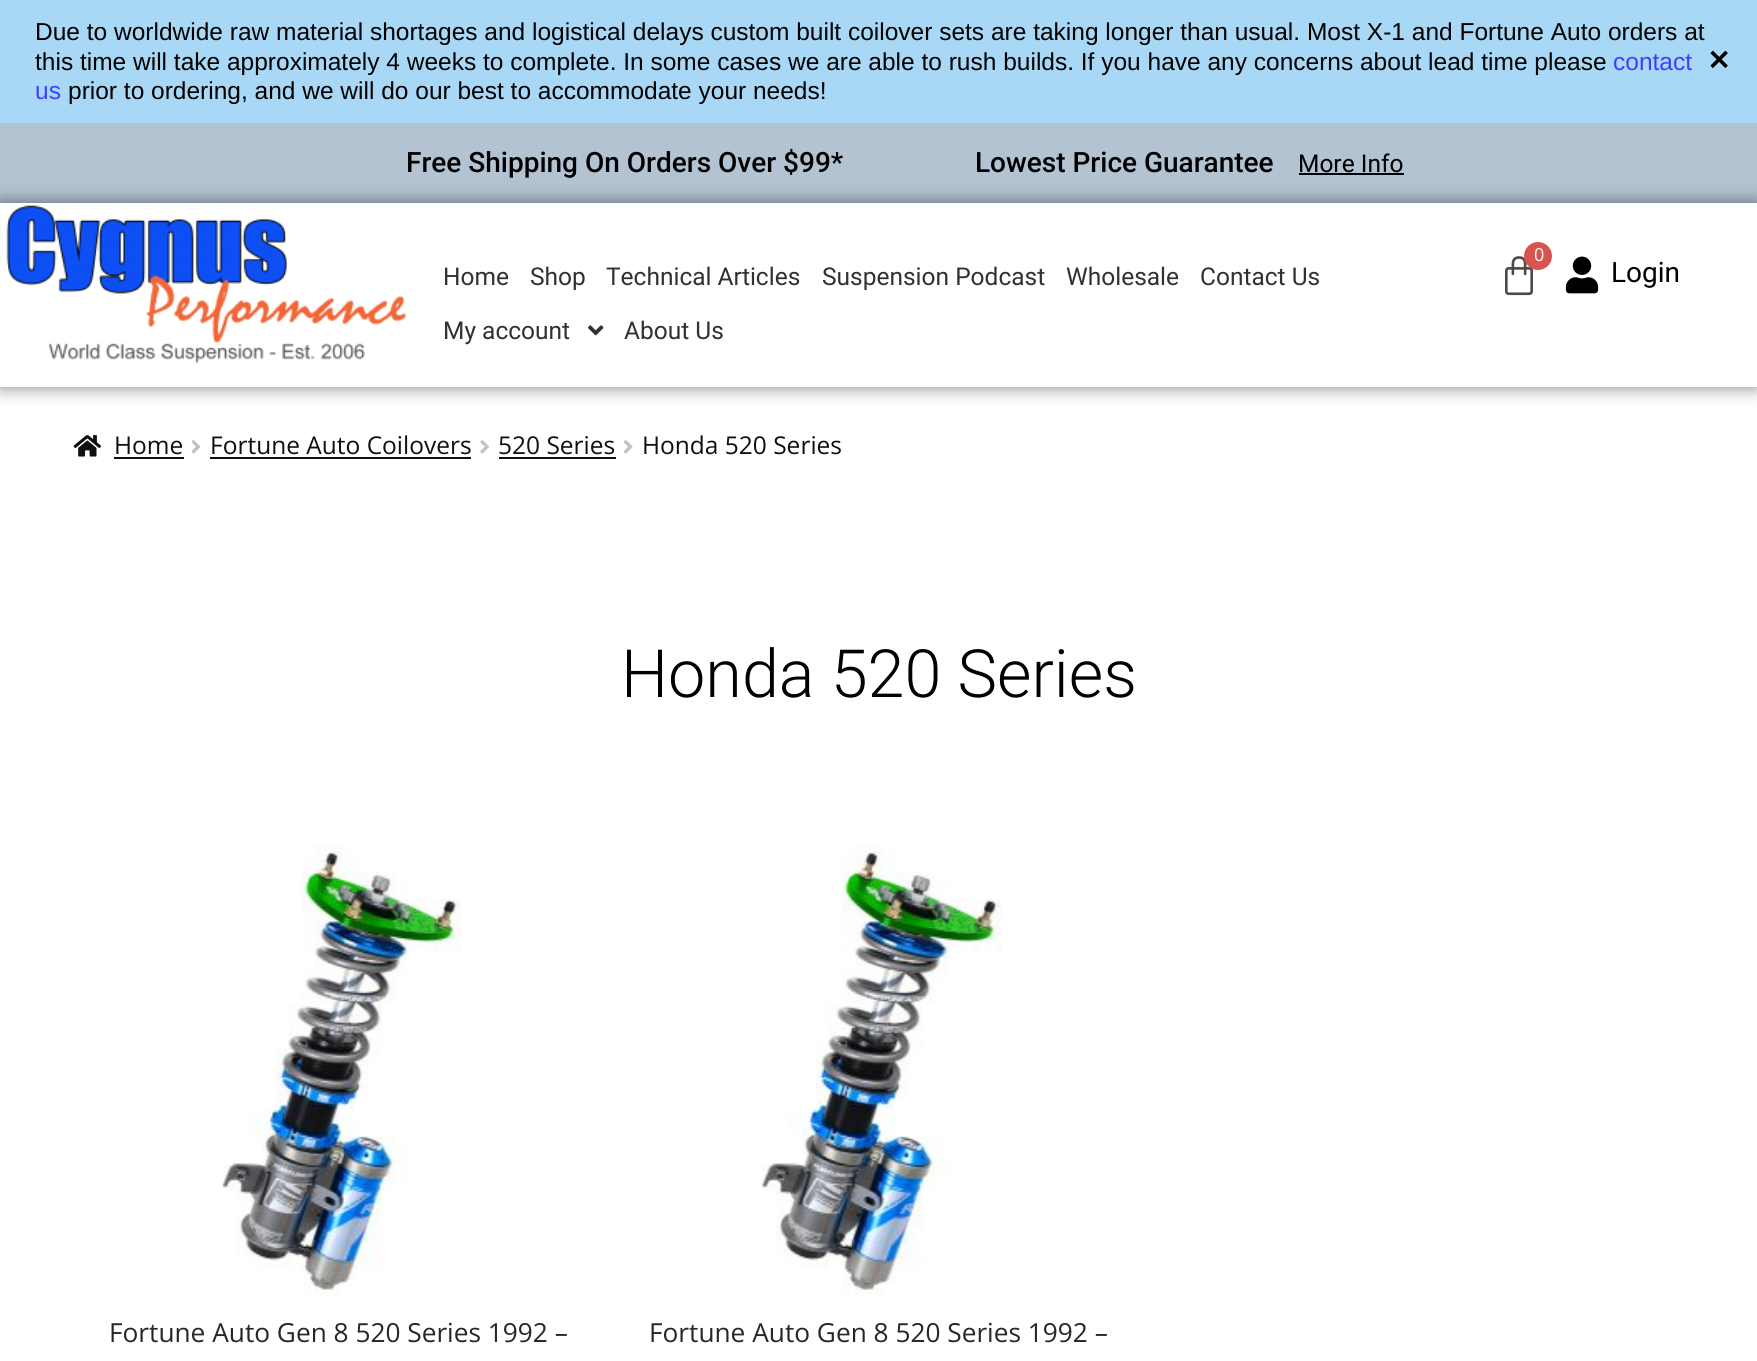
#include <cairo/cairo.h>
#include <math.h>
#include <stddef.h>

typedef struct { double x, y; const char *s; } line_t;
typedef struct { double x, y, w, h; unsigned color; } box_t;
static cairo_t *cr;

static void rgb(unsigned color)
{
	cairo_set_source_rgb(cr, (color >> 16) / 255.0, (color >> 8 & 255) / 255.0, (color & 255) / 255.0);
}

static void rrect(double x, double y, double w, double h, double r)
{
	cairo_new_sub_path(cr);
	cairo_arc(cr, x + w - r, y + h - r, r, 0, M_PI / 2);
	cairo_arc(cr, x + r, y + h - r, r, M_PI / 2, M_PI);
	cairo_arc(cr, x + r, y + r, r, M_PI, 1.5 * M_PI);
	cairo_arc(cr, x + w - r, y + r, r, 1.5 * M_PI, 2 * M_PI);
	cairo_close_path(cr);
}

static void soft_shadow(double x, double y, double w, double h, double r, double blur, double alpha)
{
	cairo_push_group_with_content(cr, CAIRO_CONTENT_ALPHA);
	cairo_set_operator(cr, CAIRO_OPERATOR_SOURCE);
	for (int i = 15; i >= -15 && fmin(w, h) + blur * i / 3 > 0; i -= 2) {
		double e = blur * i / 6;
		cairo_set_source_rgba(cr, 0, 0, 0, alpha * erfc((i - 1) / 8.5) / 2);
		rrect(x - e, y - e, w + 2 * e, h + 2 * e, fmax(0, fmin(r + e + blur * .6, fmin(w, h) / 2 + e)));
		cairo_fill(cr);
	}
	cairo_pattern_t *soft = cairo_pop_group(cr);
	cairo_mask(cr, soft);
	cairo_pattern_destroy(soft);
}

static void image(const char *path, double x, double y, double w, double h)
{
	cairo_surface_t *image = cairo_image_surface_create_from_png(path);
	cairo_save(cr);
	cairo_set_source_surface(cr, image, x, y);
	cairo_rectangle(cr, x, y, w, h);
	cairo_fill(cr);
	cairo_restore(cr);
	cairo_surface_destroy(image);
}

int main(void) {
	cairo_surface_t *surface = cairo_image_surface_create(CAIRO_FORMAT_RGB24, 1757, 1361);
	cr = cairo_create(surface);
	cairo_font_options_t *options = cairo_font_options_create();
	cairo_font_options_set_hint_metrics(options, CAIRO_HINT_METRICS_OFF);
	cairo_font_options_set_hint_style(options, CAIRO_HINT_STYLE_NONE);
	cairo_set_font_options(cr, options);
	cairo_set_miter_limit(cr, 4);
	rgb(0xffffff);
	cairo_paint(cr);
	{
		static const box_t items[] = {
			{0, 0, 1757, 123, 0xa8d8f5},
			{0, 123, 1757, 80, 0xb3c3d2},
			{1299, 173, 105, 2, 0x000000},
		};
		for (size_t i = 0; i < sizeof items / sizeof *items; i++) {
			rgb(items[i].color);
			cairo_rectangle(cr, items[i].x, items[i].y, items[i].w, items[i].h);
			cairo_fill(cr);
		}
	}
	cairo_save(cr);
	cairo_set_fill_rule(cr, CAIRO_FILL_RULE_EVEN_ODD);
	cairo_new_path(cr);
	cairo_move_to(cr, 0, 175);
	cairo_line_to(cr, 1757, 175);
	cairo_line_to(cr, 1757, 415);
	cairo_line_to(cr, 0, 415);
	cairo_close_path(cr);
	cairo_move_to(cr, 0, 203);
	cairo_line_to(cr, 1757, 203);
	cairo_line_to(cr, 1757, 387);
	cairo_line_to(cr, 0, 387);
	cairo_close_path(cr);
	cairo_clip(cr);
	rgb(0x000000);
	soft_shadow(0, 203, 1757, 184, 0, 9, 0.5);
	cairo_restore(cr);
	image("img/1.png", 6, 205, 401, 159);
	image("img/2.png", 588, 325, 16, 11);
	image("img/3.png", 1505, 256, 28, 40);
	rgb(0xd9534f);
	cairo_arc(cr, 1538, 256, 14, 0, 2 * M_PI);
	cairo_fill(cr);
	image("img/4.png", 1565, 256, 34, 38);
	image("img/5.png", 73, 435, 28, 22);
	rgb(0x0f0f0f);
	cairo_rectangle(cr, 114, 457, 70, 2);
	cairo_fill(cr);
	image("img/6.png", 191, 440, 10, 14);
	cairo_rectangle(cr, 210, 457, 261, 2);
	cairo_fill(cr);
	image("img/7.png", 480, 440, 9, 14);
	cairo_rectangle(cr, 499, 457, 117, 2);
	cairo_fill(cr);
	image("img/8.png", 623, 440, 10, 14);
	image("img/9.png", 222, 845, 240, 451);
	image("img/10.png", 762, 845, 240, 451);
	cairo_select_font_face(cr, "Liberation Sans", CAIRO_FONT_SLANT_NORMAL, CAIRO_FONT_WEIGHT_NORMAL);
	cairo_set_font_size(cr, 24.5);
	rgb(0x000000);
	cairo_move_to(cr, 35, 40);
	cairo_show_text(cr, "Due to worldwide raw material shortages and logistical delays custom built coilover sets are taking longer than usual. Most X-1 and Fortune Auto orders at");
	cairo_move_to(cr, 35, 70);
	cairo_show_text(cr, "this time will take approximately 4 weeks to complete. In some cases we are able to rush builds. If you have any concerns about lead time please");
	rgb(0x403dff);
	cairo_move_to(cr, 1613, 70);
	cairo_show_text(cr, "contact");
	cairo_move_to(cr, 35, 99);
	cairo_show_text(cr, "us");
	rgb(0x000000);
	cairo_move_to(cr, 68, 99);
	cairo_show_text(cr, "prior to ordering, and we will do our best to accommodate your needs!");
	cairo_select_font_face(cr, "DejaVu Sans", CAIRO_FONT_SLANT_NORMAL, CAIRO_FONT_WEIGHT_BOLD);
	cairo_set_font_size(cr, 28);
	cairo_move_to(cr, 1707, 70);
	cairo_show_text(cr, "✕");
	cairo_select_font_face(cr, "Roboto Medium", CAIRO_FONT_SLANT_NORMAL, CAIRO_FONT_WEIGHT_NORMAL);
	cairo_move_to(cr, 406, 172);
	cairo_show_text(cr, "Free Shipping On Orders Over $99*");
	cairo_move_to(cr, 975, 172);
	cairo_show_text(cr, "Lowest Price Guarantee");
	cairo_select_font_face(cr, "Roboto", CAIRO_FONT_SLANT_NORMAL, CAIRO_FONT_WEIGHT_NORMAL);
	cairo_set_font_size(cr, 24.5);
	cairo_move_to(cr, 1298, 172);
	cairo_show_text(cr, "More Info");
	rgb(0x313131);
	{
		static const line_t items[] = {
			{443, 285, "Home"},
			{530, 285, "Shop"},
			{606, 285, "Technical Articles"},
			{822, 285, "Suspension Podcast"},
			{1066, 285, "Wholesale"},
			{1200, 285, "Contact Us"},
			{443, 339, "My account"},
			{624, 339, "About Us"},
		};
		for (size_t i = 0; i < sizeof items / sizeof *items; i++) {
			cairo_move_to(cr, items[i].x, items[i].y);
			cairo_show_text(cr, items[i].s);
		}
	}
	cairo_select_font_face(cr, "Open Sans", CAIRO_FONT_SLANT_NORMAL, CAIRO_FONT_WEIGHT_NORMAL);
	cairo_set_font_size(cr, 18);
	rgb(0xffffff);
	cairo_move_to(cr, 1534, 261);
	cairo_show_text(cr, "0");
	cairo_select_font_face(cr, "Roboto", CAIRO_FONT_SLANT_NORMAL, CAIRO_FONT_WEIGHT_NORMAL);
	cairo_set_font_size(cr, 28);
	rgb(0x000000);
	cairo_move_to(cr, 1611, 282);
	cairo_show_text(cr, "Login");
	cairo_select_font_face(cr, "Open Sans", CAIRO_FONT_SLANT_NORMAL, CAIRO_FONT_WEIGHT_NORMAL);
	cairo_set_font_size(cr, 24.5);
	rgb(0x0f0f0f);
	{
		static const line_t items[] = {
			{114, 454, "Home"},
			{210, 454, "Fortune Auto Coilovers"},
			{498, 454, "520 Series"},
			{642, 454, "Honda 520 Series"},
		};
		for (size_t i = 0; i < sizeof items / sizeof *items; i++) {
			cairo_move_to(cr, items[i].x, items[i].y);
			cairo_show_text(cr, items[i].s);
		}
	}
	cairo_select_font_face(cr, "Roboto Light", CAIRO_FONT_SLANT_NORMAL, CAIRO_FONT_WEIGHT_NORMAL);
	cairo_set_font_size(cr, 66.5);
	rgb(0x000000);
	cairo_move_to(cr, 621, 697);
	cairo_show_text(cr, "Honda 520 Series");
	cairo_select_font_face(cr, "Open Sans", CAIRO_FONT_SLANT_NORMAL, CAIRO_FONT_WEIGHT_NORMAL);
	cairo_set_font_size(cr, 26.25);
	rgb(0x272727);
	cairo_move_to(cr, 109, 1342);
	cairo_show_text(cr, "Fortune Auto Gen 8 520 Series 1992 –");
	cairo_move_to(cr, 649, 1342);
	cairo_show_text(cr, "Fortune Auto Gen 8 520 Series 1992 –");
	cairo_surface_write_to_png(surface, "page.png");
	cairo_font_options_destroy(options);
	cairo_destroy(cr);
	cairo_surface_destroy(surface);
	return 0;
}
